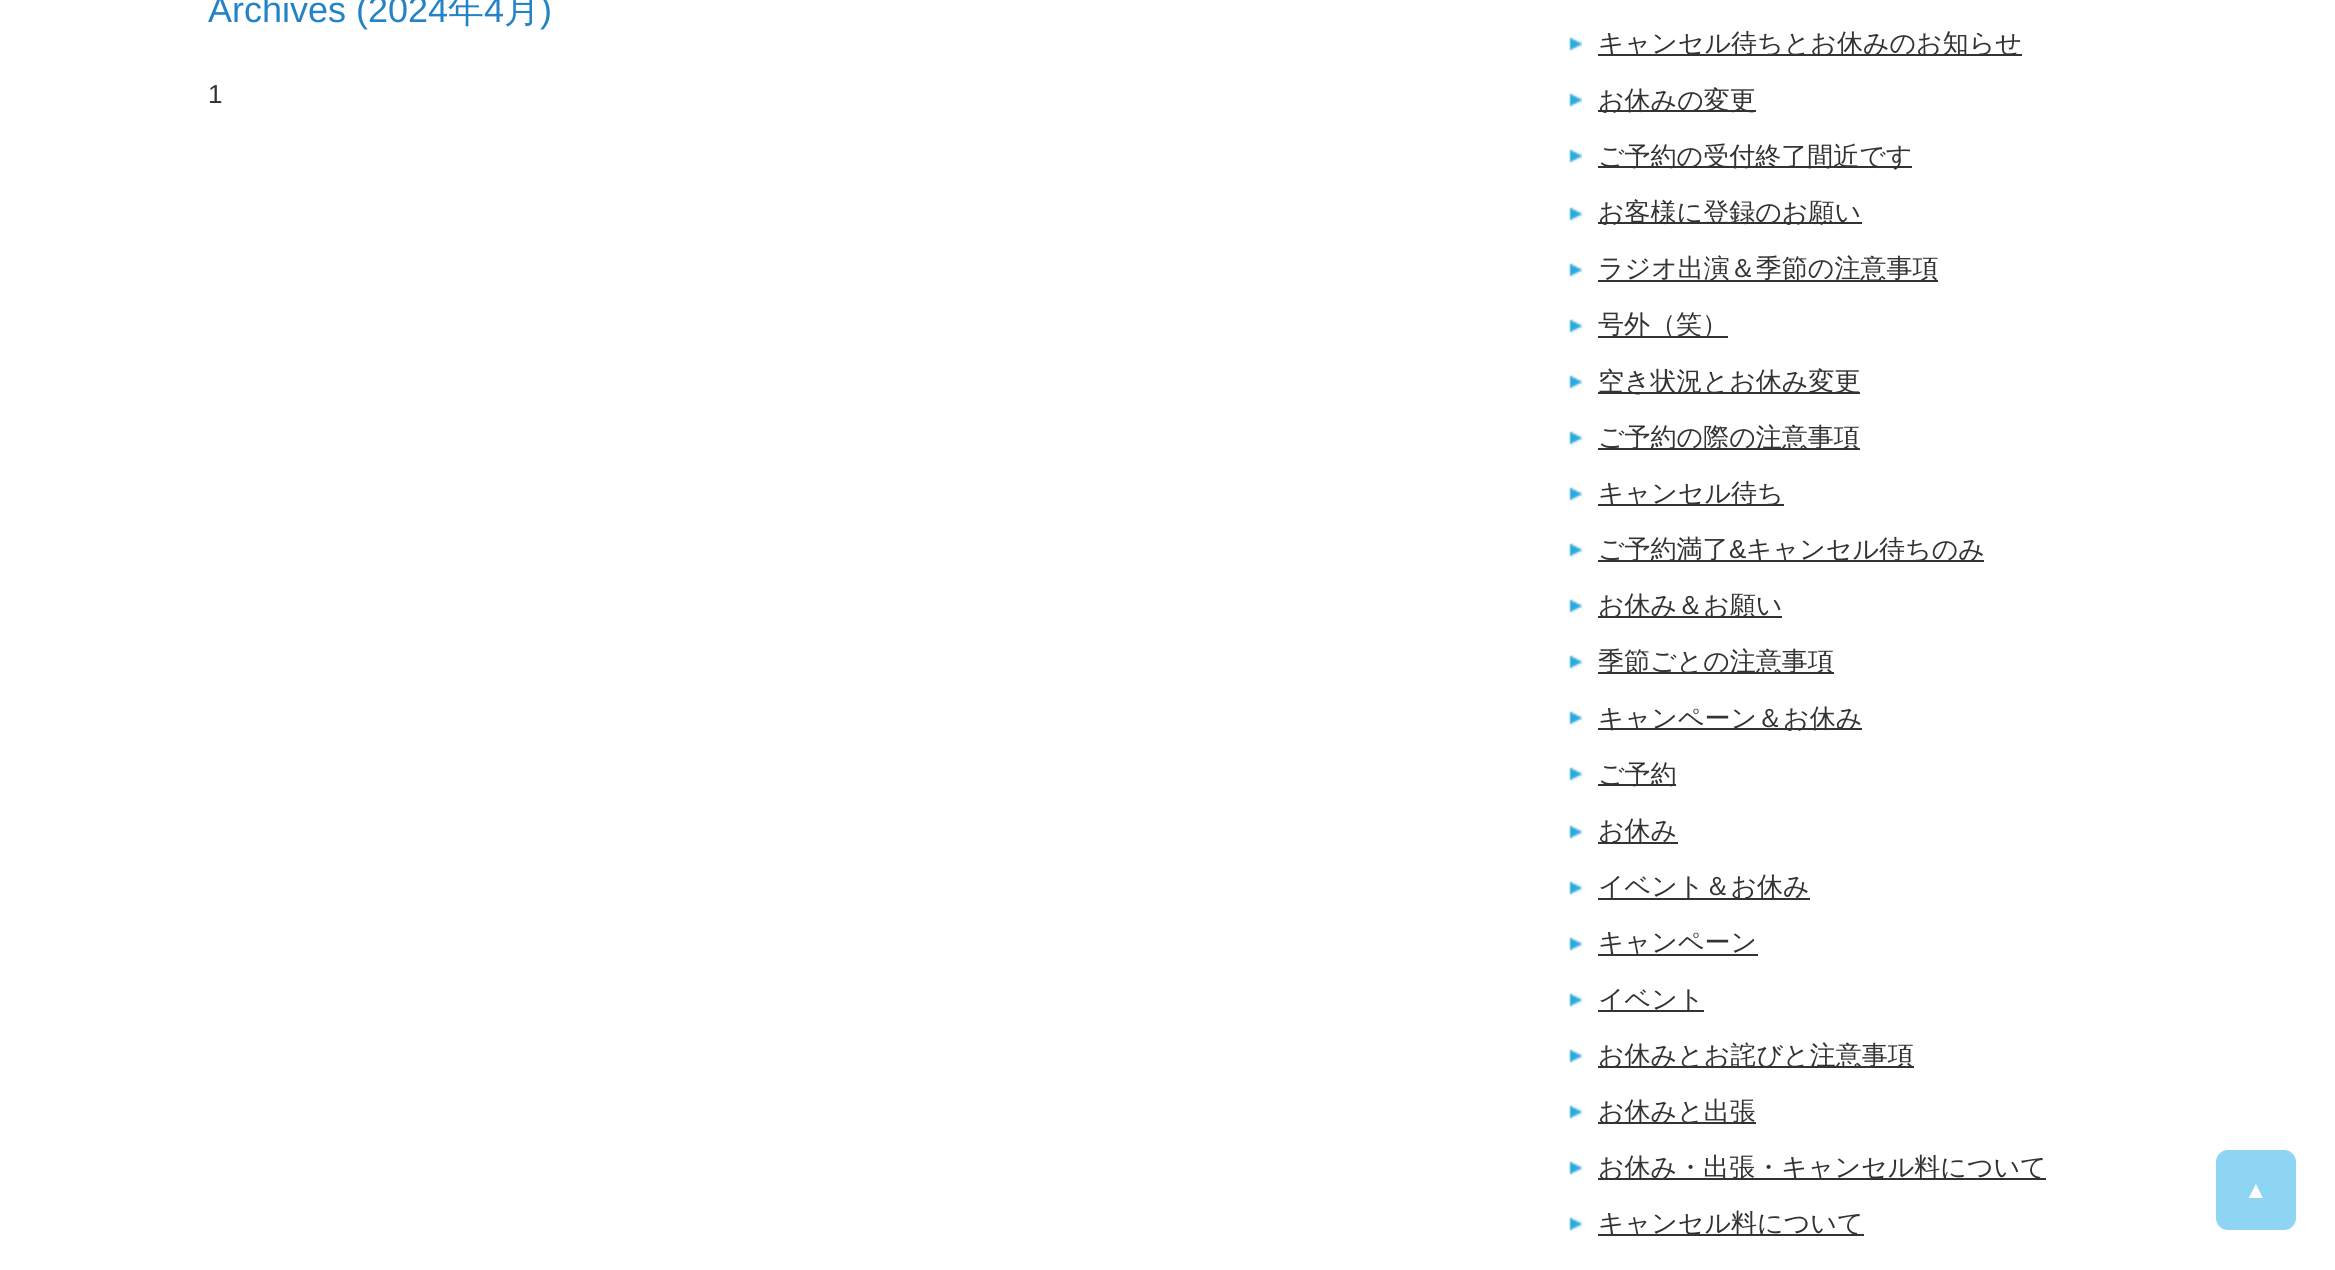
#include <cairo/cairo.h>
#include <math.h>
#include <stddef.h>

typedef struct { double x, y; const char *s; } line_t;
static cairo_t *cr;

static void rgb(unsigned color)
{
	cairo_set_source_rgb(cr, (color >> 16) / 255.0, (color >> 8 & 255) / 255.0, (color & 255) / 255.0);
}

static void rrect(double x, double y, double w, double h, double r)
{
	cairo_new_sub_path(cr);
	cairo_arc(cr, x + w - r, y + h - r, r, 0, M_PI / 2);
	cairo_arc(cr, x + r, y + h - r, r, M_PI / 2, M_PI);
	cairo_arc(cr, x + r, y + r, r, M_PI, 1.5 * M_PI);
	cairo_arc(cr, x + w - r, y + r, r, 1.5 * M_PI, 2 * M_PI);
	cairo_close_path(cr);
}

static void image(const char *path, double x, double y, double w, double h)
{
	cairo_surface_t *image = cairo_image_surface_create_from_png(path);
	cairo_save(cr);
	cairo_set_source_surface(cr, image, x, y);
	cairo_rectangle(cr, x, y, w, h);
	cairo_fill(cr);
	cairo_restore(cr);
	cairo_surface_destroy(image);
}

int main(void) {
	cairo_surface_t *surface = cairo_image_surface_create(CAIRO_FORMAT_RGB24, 2335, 1270);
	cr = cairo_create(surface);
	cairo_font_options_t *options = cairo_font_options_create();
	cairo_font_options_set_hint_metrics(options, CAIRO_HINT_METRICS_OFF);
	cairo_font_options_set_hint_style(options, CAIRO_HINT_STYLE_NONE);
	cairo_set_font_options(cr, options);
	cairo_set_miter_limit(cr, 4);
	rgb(0xffffff);
	cairo_paint(cr);
	image("img/1.png", 1569, 37, 13, 14);
	rgb(0x333333);
	cairo_rectangle(cr, 1598, 54, 424, 2);
	cairo_fill(cr);
	image("img/1.png", 1569, 93, 13, 14);
	cairo_rectangle(cr, 1598, 110, 158, 2);
	cairo_fill(cr);
	image("img/1.png", 1569, 149, 13, 14);
	cairo_rectangle(cr, 1598, 166, 314, 2);
	cairo_fill(cr);
	image("img/1.png", 1569, 207, 13, 14);
	cairo_rectangle(cr, 1598, 222, 264, 2);
	cairo_fill(cr);
	image("img/1.png", 1569, 263, 13, 14);
	cairo_rectangle(cr, 1598, 280, 340, 2);
	cairo_fill(cr);
	image("img/1.png", 1569, 319, 13, 14);
	cairo_rectangle(cr, 1598, 336, 130, 2);
	cairo_fill(cr);
	image("img/1.png", 1569, 375, 13, 14);
	cairo_rectangle(cr, 1598, 392, 262, 2);
	cairo_fill(cr);
	image("img/1.png", 1569, 431, 13, 14);
	cairo_rectangle(cr, 1598, 448, 262, 2);
	cairo_fill(cr);
	image("img/1.png", 1569, 487, 13, 14);
	cairo_rectangle(cr, 1598, 504, 186, 2);
	cairo_fill(cr);
	image("img/1.png", 1569, 543, 13, 14);
	cairo_rectangle(cr, 1598, 560, 386, 2);
	cairo_fill(cr);
	image("img/1.png", 1569, 599, 13, 14);
	cairo_rectangle(cr, 1598, 616, 184, 2);
	cairo_fill(cr);
	image("img/1.png", 1569, 655, 13, 14);
	cairo_rectangle(cr, 1598, 672, 236, 2);
	cairo_fill(cr);
	image("img/1.png", 1569, 711, 13, 14);
	cairo_rectangle(cr, 1598, 728, 264, 2);
	cairo_fill(cr);
	image("img/1.png", 1569, 767, 13, 14);
	cairo_rectangle(cr, 1598, 784, 78, 2);
	cairo_fill(cr);
	image("img/1.png", 1569, 825, 13, 14);
	cairo_rectangle(cr, 1598, 842, 80, 2);
	cairo_fill(cr);
	image("img/1.png", 1569, 881, 13, 14);
	cairo_rectangle(cr, 1598, 898, 212, 2);
	cairo_fill(cr);
	image("img/1.png", 1569, 937, 13, 14);
	cairo_rectangle(cr, 1598, 954, 160, 2);
	cairo_fill(cr);
	image("img/1.png", 1569, 993, 13, 14);
	cairo_rectangle(cr, 1598, 1010, 106, 2);
	cairo_fill(cr);
	image("img/1.png", 1569, 1049, 13, 14);
	cairo_rectangle(cr, 1598, 1066, 316, 2);
	cairo_fill(cr);
	image("img/1.png", 1569, 1105, 13, 14);
	cairo_rectangle(cr, 1598, 1122, 158, 2);
	cairo_fill(cr);
	image("img/1.png", 1569, 1161, 13, 14);
	cairo_rectangle(cr, 1598, 1178, 448, 2);
	cairo_fill(cr);
	image("img/1.png", 1569, 1217, 13, 14);
	cairo_rectangle(cr, 1598, 1234, 266, 2);
	cairo_fill(cr);
	rgb(0x8dd5f2);
	rrect(2216, 1150, 80, 80, 12);
	cairo_fill(cr);
	cairo_select_font_face(cr, "Liberation Sans", CAIRO_FONT_SLANT_NORMAL, CAIRO_FONT_WEIGHT_NORMAL);
	cairo_set_font_size(cr, 36);
	rgb(0x2383c4);
	cairo_move_to(cr, 208, 22);
	cairo_show_text(cr, "Archives (2024");
	cairo_select_font_face(cr, "WenQuanYi Zen Hei Medium", CAIRO_FONT_SLANT_NORMAL, CAIRO_FONT_WEIGHT_NORMAL);
	cairo_move_to(cr, 448, 22);
	cairo_show_text(cr, "年");
	cairo_select_font_face(cr, "Liberation Sans", CAIRO_FONT_SLANT_NORMAL, CAIRO_FONT_WEIGHT_NORMAL);
	cairo_move_to(cr, 484, 22);
	cairo_show_text(cr, "4");
	cairo_select_font_face(cr, "WenQuanYi Zen Hei Medium", CAIRO_FONT_SLANT_NORMAL, CAIRO_FONT_WEIGHT_NORMAL);
	cairo_move_to(cr, 504, 22);
	cairo_show_text(cr, "月");
	cairo_select_font_face(cr, "Liberation Sans", CAIRO_FONT_SLANT_NORMAL, CAIRO_FONT_WEIGHT_NORMAL);
	cairo_move_to(cr, 540, 22);
	cairo_show_text(cr, ")");
	cairo_set_font_size(cr, 26);
	rgb(0x333333);
	cairo_move_to(cr, 208, 103);
	cairo_show_text(cr, "1");
	cairo_select_font_face(cr, "WenQuanYi Zen Hei Medium", CAIRO_FONT_SLANT_NORMAL, CAIRO_FONT_WEIGHT_NORMAL);
	{
		static const line_t items[] = {
			{1598, 52, "キャンセル待ちとお休みのお知らせ"},
			{1598, 109, "お休みの変更"},
			{1598, 165, "ご予約の受付終了間近です"},
			{1598, 221, "お客様に登録のお願い"},
			{1598, 277, "ラジオ出演＆季節の注意事項"},
			{1598, 333, "号外（笑）"},
			{1598, 390, "空き状況とお休み変更"},
			{1598, 446, "ご予約の際の注意事項"},
			{1598, 502, "キャンセル待ち"},
			{1598, 558, "ご予約満了"},
		};
		for (size_t i = 0; i < sizeof items / sizeof *items; i++) {
			cairo_move_to(cr, items[i].x, items[i].y);
			cairo_show_text(cr, items[i].s);
		}
	}
	cairo_select_font_face(cr, "Liberation Sans", CAIRO_FONT_SLANT_NORMAL, CAIRO_FONT_WEIGHT_NORMAL);
	cairo_move_to(cr, 1729, 558);
	cairo_show_text(cr, "&");
	cairo_select_font_face(cr, "WenQuanYi Zen Hei Medium", CAIRO_FONT_SLANT_NORMAL, CAIRO_FONT_WEIGHT_NORMAL);
	{
		static const line_t items[] = {
			{1746, 558, "キャンセル待ちのみ"},
			{1598, 614, "お休み＆お願い"},
			{1598, 670, "季節ごとの注意事項"},
			{1598, 727, "キャンペーン＆お休み"},
			{1598, 783, "ご予約"},
			{1598, 839, "お休み"},
			{1598, 895, "イベント＆お休み"},
			{1598, 951, "キャンペーン"},
			{1598, 1008, "イベント"},
			{1598, 1064, "お休みとお詫びと注意事項"},
			{1598, 1120, "お休みと出張"},
			{1598, 1176, "お休み・出張・キャンセル料について"},
			{1598, 1232, "キャンセル料について"},
		};
		for (size_t i = 0; i < sizeof items / sizeof *items; i++) {
			cairo_move_to(cr, items[i].x, items[i].y);
			cairo_show_text(cr, items[i].s);
		}
	}
	cairo_select_font_face(cr, "Liberation Sans", CAIRO_FONT_SLANT_NORMAL, CAIRO_FONT_WEIGHT_NORMAL);
	cairo_set_font_size(cr, 24);
	rgb(0xffffff);
	cairo_move_to(cr, 2244, 1198);
	cairo_show_text(cr, "▲");
	cairo_surface_write_to_png(surface, "page.png");
	cairo_font_options_destroy(options);
	cairo_destroy(cr);
	cairo_surface_destroy(surface);
	return 0;
}
